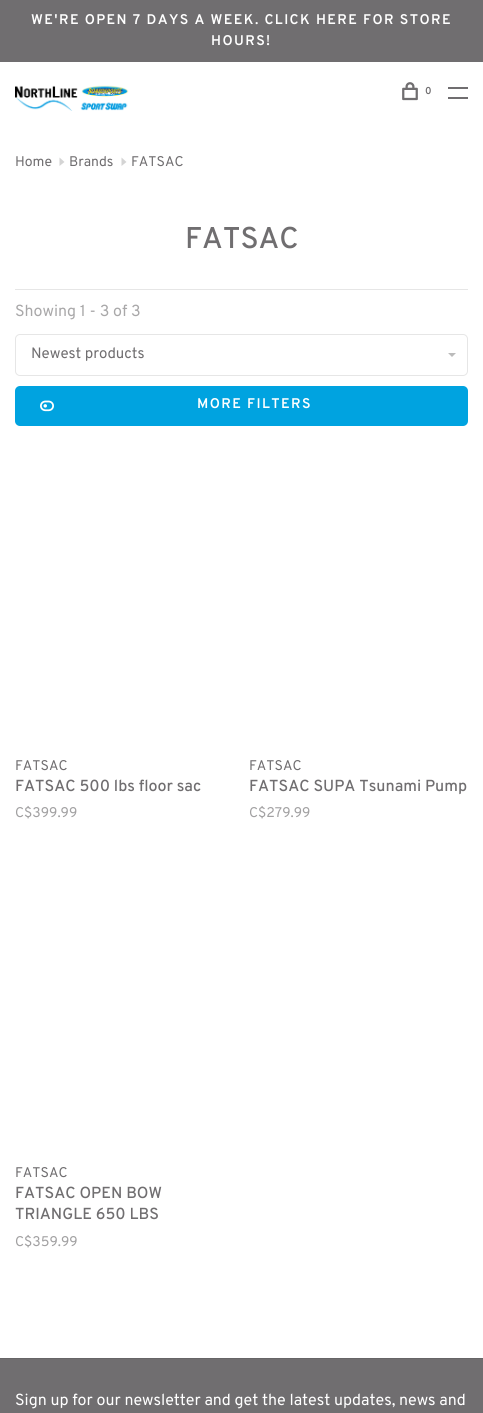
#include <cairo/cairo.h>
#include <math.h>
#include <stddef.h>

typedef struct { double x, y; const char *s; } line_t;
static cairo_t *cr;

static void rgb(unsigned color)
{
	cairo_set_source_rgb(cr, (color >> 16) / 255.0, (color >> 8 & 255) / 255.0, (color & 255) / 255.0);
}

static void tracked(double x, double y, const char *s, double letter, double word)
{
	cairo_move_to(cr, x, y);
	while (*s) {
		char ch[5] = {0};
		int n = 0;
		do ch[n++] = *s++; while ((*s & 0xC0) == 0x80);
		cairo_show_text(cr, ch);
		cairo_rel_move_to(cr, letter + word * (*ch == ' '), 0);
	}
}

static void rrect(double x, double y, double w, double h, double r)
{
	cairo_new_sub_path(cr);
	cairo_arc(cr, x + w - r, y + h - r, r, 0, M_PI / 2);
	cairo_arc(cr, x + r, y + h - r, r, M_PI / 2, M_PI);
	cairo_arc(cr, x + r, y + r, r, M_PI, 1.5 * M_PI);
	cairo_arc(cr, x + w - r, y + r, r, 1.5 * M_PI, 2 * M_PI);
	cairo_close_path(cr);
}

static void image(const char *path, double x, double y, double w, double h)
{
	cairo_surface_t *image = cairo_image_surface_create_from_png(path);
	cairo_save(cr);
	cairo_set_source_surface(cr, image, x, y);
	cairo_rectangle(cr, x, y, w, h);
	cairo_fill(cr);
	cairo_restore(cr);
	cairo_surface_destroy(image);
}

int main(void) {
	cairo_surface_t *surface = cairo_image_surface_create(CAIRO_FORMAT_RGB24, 483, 1413);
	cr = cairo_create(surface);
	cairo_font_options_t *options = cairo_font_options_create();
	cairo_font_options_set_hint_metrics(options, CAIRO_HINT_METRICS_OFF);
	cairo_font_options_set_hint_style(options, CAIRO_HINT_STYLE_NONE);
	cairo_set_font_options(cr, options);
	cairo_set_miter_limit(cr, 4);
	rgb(0xffffff);
	cairo_paint(cr);
	rgb(0x706e70);
	cairo_rectangle(cr, 0, 0, 483, 62);
	cairo_fill(cr);
	image("img/1.png", 15, 85, 114, 26);
	image("img/2.png", 402, 82, 16, 19);
	cairo_rectangle(cr, 448, 87, 20, 2);
	cairo_fill(cr);
	cairo_rectangle(cr, 448, 97, 20, 2);
	cairo_fill(cr);
	rgb(0xd4d4d4);
	cairo_new_path(cr);
	cairo_move_to(cr, 59.5, 166);
	cairo_line_to(cr, 64.5, 162);
	cairo_line_to(cr, 59.5, 157.5);
	cairo_close_path(cr);
	cairo_fill(cr);
	cairo_new_path(cr);
	cairo_move_to(cr, 121.5, 166);
	cairo_line_to(cr, 126.5, 162);
	cairo_line_to(cr, 121.5, 157.5);
	cairo_close_path(cr);
	cairo_fill(cr);
	rgb(0xe6e6e6);
	cairo_rectangle(cr, 15, 289, 453, 1);
	cairo_fill(cr);
	rrect(15.5, 334.5, 452, 41, 4.5);
	cairo_set_line_width(cr, 1);
	cairo_stroke(cr);
	rgb(0xbbbbbb);
	cairo_new_path(cr);
	cairo_move_to(cr, 448, 353);
	cairo_line_to(cr, 456, 353);
	cairo_line_to(cr, 452, 357);
	cairo_close_path(cr);
	cairo_fill(cr);
	rgb(0x00a3e0);
	rrect(15, 386, 453, 40, 5);
	cairo_fill(cr);
	image("img/3.png", 40, 400, 14, 12);
	rgb(0x706e70);
	cairo_rectangle(cr, 0, 1359, 483, 54);
	cairo_fill(cr);
	rgb(0x676567);
	cairo_rectangle(cr, 0, 1358, 483, 1);
	cairo_fill(cr);
	cairo_select_font_face(cr, "Overpass SemiBold", CAIRO_FONT_SLANT_NORMAL, CAIRO_FONT_WEIGHT_NORMAL);
	cairo_set_font_size(cr, 14);
	rgb(0xffffff);
	tracked(31, 24, "WE'RE OPEN 7 DAYS A WEEK. CLICK HERE FOR STORE", 1.4, 0);
	tracked(211, 45, "HOURS!", 1.4, 0);
	cairo_set_font_size(cr, 10);
	rgb(0x706e70);
	tracked(425, 94, "0", 1.4, 0);
	cairo_select_font_face(cr, "Overpass", CAIRO_FONT_SLANT_NORMAL, CAIRO_FONT_WEIGHT_NORMAL);
	cairo_set_font_size(cr, 14);
	{
		static const line_t items[] = {
			{15, 166, "Home"},
			{69, 166, "Brands"},
			{131, 166, "FATSAC"},
		};
		for (size_t i = 0; i < sizeof items / sizeof *items; i++) {
			cairo_move_to(cr, items[i].x, items[i].y);
			cairo_show_text(cr, items[i].s);
		}
	}
	cairo_select_font_face(cr, "Overpass Medium", CAIRO_FONT_SLANT_NORMAL, CAIRO_FONT_WEIGHT_NORMAL);
	cairo_set_font_size(cr, 30);
	cairo_move_to(cr, 185, 248);
	cairo_show_text(cr, "FATSAC");
	cairo_select_font_face(cr, "Overpass", CAIRO_FONT_SLANT_NORMAL, CAIRO_FONT_WEIGHT_NORMAL);
	cairo_set_font_size(cr, 16);
	rgb(0xa9a8a9);
	cairo_move_to(cr, 15, 316);
	cairo_show_text(cr, "Showing 1 - 3 of 3");
	cairo_set_font_size(cr, 15);
	rgb(0x706e70);
	cairo_move_to(cr, 31, 358);
	cairo_show_text(cr, "Newest products");
	cairo_select_font_face(cr, "Overpass SemiBold", CAIRO_FONT_SLANT_NORMAL, CAIRO_FONT_WEIGHT_NORMAL);
	cairo_set_font_size(cr, 14);
	rgb(0xffffff);
	tracked(197, 408, "MORE FILTERS", 1.4, 0);
	cairo_select_font_face(cr, "Overpass", CAIRO_FONT_SLANT_NORMAL, CAIRO_FONT_WEIGHT_NORMAL);
	rgb(0x706e70);
	cairo_move_to(cr, 15, 770);
	cairo_show_text(cr, "FATSAC");
	cairo_select_font_face(cr, "Overpass Medium", CAIRO_FONT_SLANT_NORMAL, CAIRO_FONT_WEIGHT_NORMAL);
	cairo_set_font_size(cr, 16);
	cairo_move_to(cr, 15, 791);
	cairo_show_text(cr, "FATSAC 500 lbs floor sac");
	cairo_select_font_face(cr, "Overpass", CAIRO_FONT_SLANT_NORMAL, CAIRO_FONT_WEIGHT_NORMAL);
	cairo_set_font_size(cr, 14);
	rgb(0xa2a1a2);
	cairo_move_to(cr, 15, 817);
	cairo_show_text(cr, "C$399.99");
	rgb(0x706e70);
	cairo_move_to(cr, 249, 770);
	cairo_show_text(cr, "FATSAC");
	cairo_select_font_face(cr, "Overpass Medium", CAIRO_FONT_SLANT_NORMAL, CAIRO_FONT_WEIGHT_NORMAL);
	cairo_set_font_size(cr, 16);
	cairo_move_to(cr, 249, 791);
	cairo_show_text(cr, "FATSAC SUPA Tsunami Pump");
	cairo_select_font_face(cr, "Overpass", CAIRO_FONT_SLANT_NORMAL, CAIRO_FONT_WEIGHT_NORMAL);
	cairo_set_font_size(cr, 14);
	rgb(0xa2a1a2);
	cairo_move_to(cr, 249, 817);
	cairo_show_text(cr, "C$279.99");
	rgb(0x706e70);
	cairo_move_to(cr, 15, 1177);
	cairo_show_text(cr, "FATSAC");
	cairo_select_font_face(cr, "Overpass Medium", CAIRO_FONT_SLANT_NORMAL, CAIRO_FONT_WEIGHT_NORMAL);
	cairo_set_font_size(cr, 16);
	cairo_move_to(cr, 15, 1198);
	cairo_show_text(cr, "FATSAC OPEN BOW");
	cairo_move_to(cr, 15, 1219);
	cairo_show_text(cr, "TRIANGLE 650 LBS");
	cairo_select_font_face(cr, "Overpass", CAIRO_FONT_SLANT_NORMAL, CAIRO_FONT_WEIGHT_NORMAL);
	cairo_set_font_size(cr, 14);
	rgb(0xa2a1a2);
	cairo_move_to(cr, 15, 1246);
	cairo_show_text(cr, "C$359.99");
	cairo_set_font_size(cr, 16);
	rgb(0xffffff);
	cairo_move_to(cr, 15, 1405);
	cairo_show_text(cr, "Sign up for our newsletter and get the latest updates, news and");
	cairo_surface_write_to_png(surface, "page.png");
	cairo_font_options_destroy(options);
	cairo_destroy(cr);
	cairo_surface_destroy(surface);
	return 0;
}
